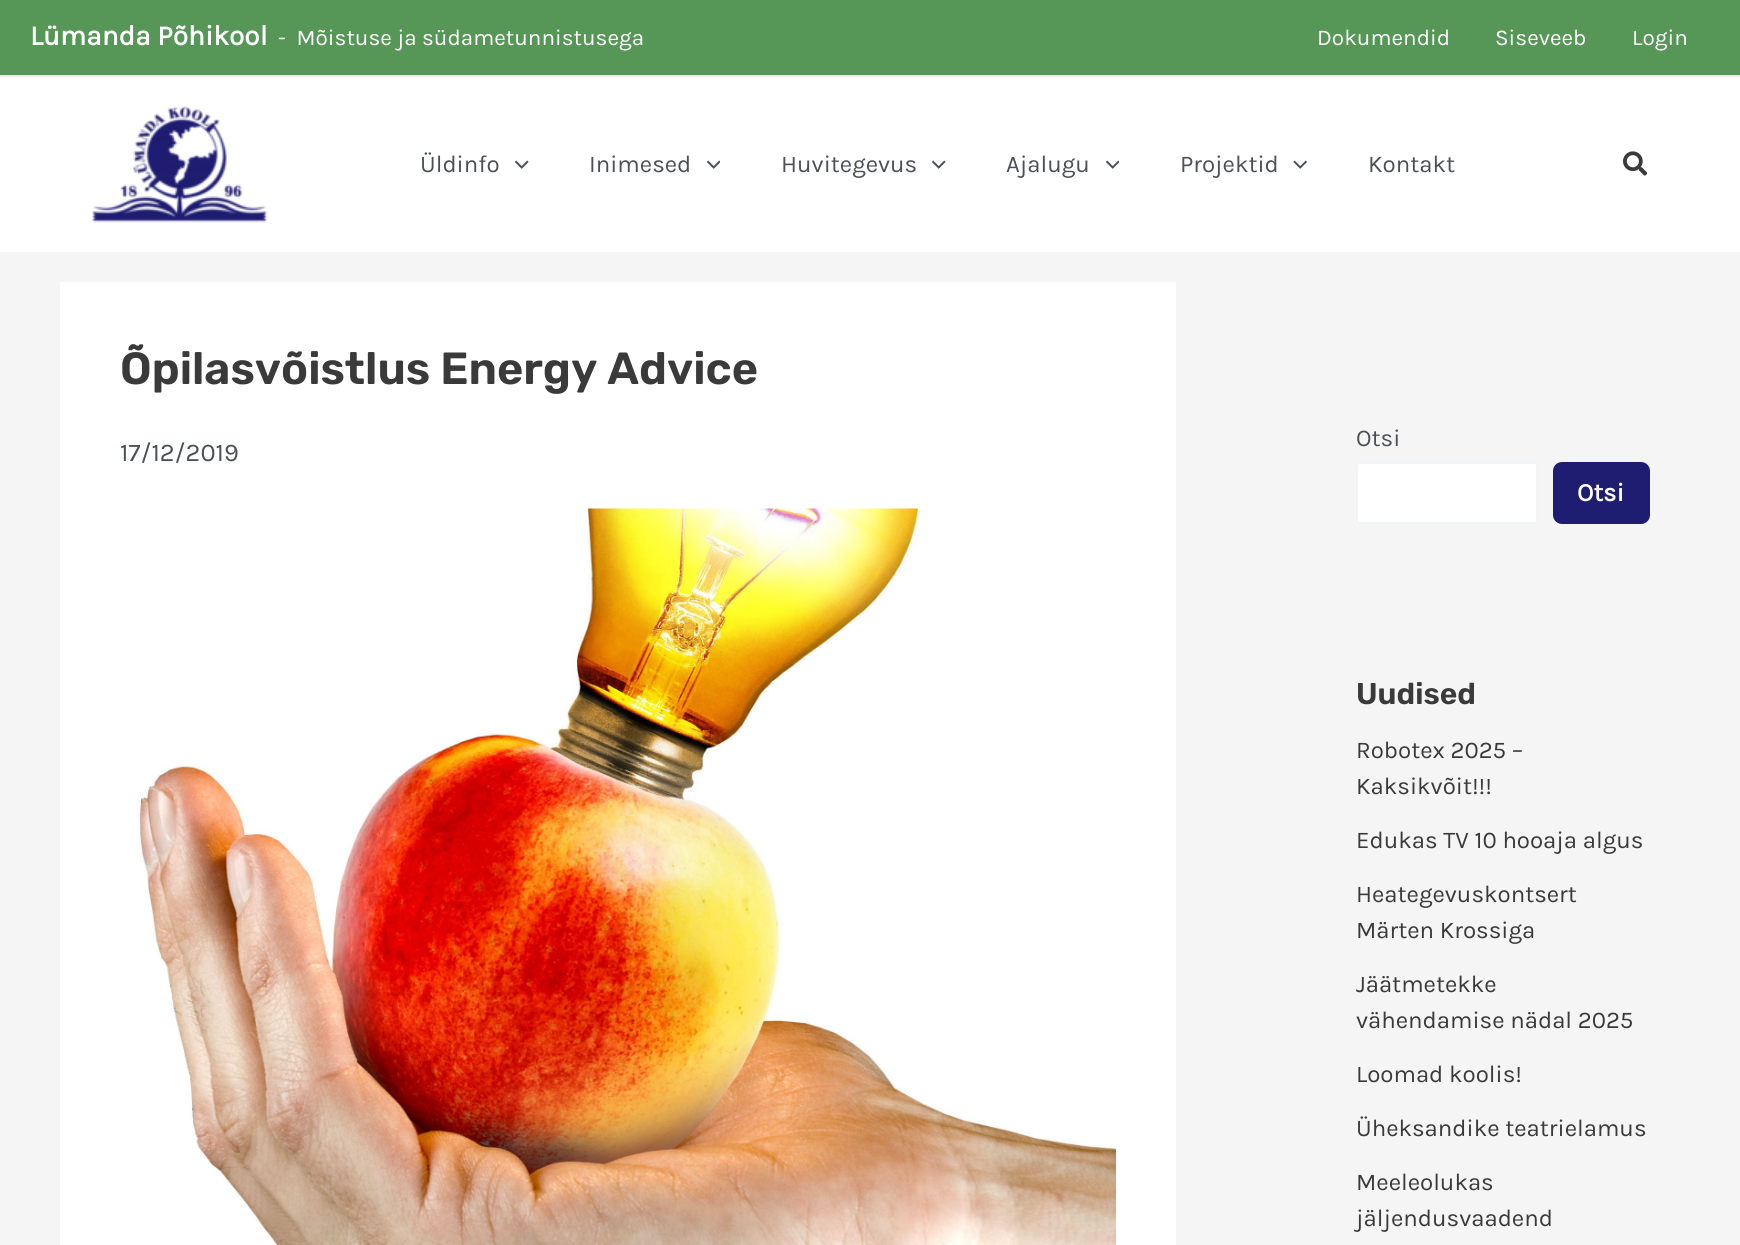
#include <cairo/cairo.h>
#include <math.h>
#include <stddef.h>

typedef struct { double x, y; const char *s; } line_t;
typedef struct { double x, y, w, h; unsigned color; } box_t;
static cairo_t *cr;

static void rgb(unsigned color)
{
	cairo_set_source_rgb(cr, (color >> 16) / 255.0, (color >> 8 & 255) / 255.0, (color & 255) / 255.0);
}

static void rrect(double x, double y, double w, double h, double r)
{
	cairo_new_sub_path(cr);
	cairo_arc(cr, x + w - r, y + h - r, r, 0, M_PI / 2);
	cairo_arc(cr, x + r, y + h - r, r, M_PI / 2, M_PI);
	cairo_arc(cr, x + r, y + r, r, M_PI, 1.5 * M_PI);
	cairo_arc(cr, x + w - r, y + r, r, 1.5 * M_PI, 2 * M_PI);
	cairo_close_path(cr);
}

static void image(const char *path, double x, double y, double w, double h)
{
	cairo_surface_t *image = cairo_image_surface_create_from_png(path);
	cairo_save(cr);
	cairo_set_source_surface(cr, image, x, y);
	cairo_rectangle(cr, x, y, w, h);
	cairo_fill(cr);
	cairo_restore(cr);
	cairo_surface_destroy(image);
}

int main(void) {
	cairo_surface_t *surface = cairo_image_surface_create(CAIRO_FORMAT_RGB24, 1740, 1245);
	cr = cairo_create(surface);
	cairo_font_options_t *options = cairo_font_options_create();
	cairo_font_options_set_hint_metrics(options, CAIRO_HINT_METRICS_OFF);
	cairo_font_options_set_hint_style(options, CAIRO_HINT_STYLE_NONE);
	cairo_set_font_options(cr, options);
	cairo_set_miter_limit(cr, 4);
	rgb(0xf5f5f5);
	cairo_paint(cr);
	{
		static const box_t items[] = {
			{0, 0, 1740, 75, 0x569657},
			{0, 75, 1740, 2, 0xeaeaea},
			{0, 77, 1740, 175, 0xffffff},
		};
		for (size_t i = 0; i < sizeof items / sizeof *items; i++) {
			rgb(items[i].color);
			cairo_rectangle(cr, items[i].x, items[i].y, items[i].w, items[i].h);
			cairo_fill(cr);
		}
	}
	image("img/1.png", 91, 106, 177, 117);
	image("img/2.png", 515, 160, 14, 9);
	image("img/3.png", 707, 160, 13, 9);
	image("img/2.png", 932, 160, 14, 9);
	image("img/3.png", 1106, 160, 13, 9);
	image("img/4.png", 1293, 160, 14, 9);
	image("img/5.png", 1623, 151, 24, 25);
	cairo_rectangle(cr, 60, 282, 1116, 963);
	cairo_fill(cr);
	image("img/6.png", 136, 508, 980, 737);
	rrect(1357, 463, 180, 60, 2);
	cairo_fill_preserve(cr);
	rgb(0xf2f5f7);
	cairo_stroke(cr);
	rgb(0x1f1d71);
	rrect(1553, 462, 97, 62, 9);
	cairo_fill(cr);
	cairo_select_font_face(cr, "Karla", CAIRO_FONT_SLANT_NORMAL, CAIRO_FONT_WEIGHT_BOLD);
	cairo_set_font_size(cr, 28);
	rgb(0xffffff);
	cairo_move_to(cr, 30, 45);
	cairo_show_text(cr, "Lümanda Põhikool");
	cairo_select_font_face(cr, "Karla", CAIRO_FONT_SLANT_NORMAL, CAIRO_FONT_WEIGHT_NORMAL);
	cairo_set_font_size(cr, 22.5);
	{
		static const line_t items[] = {
			{278, 45, "-  Mõistuse ja südametunnistusega"},
			{1317, 45, "Dokumendid"},
			{1495, 45, "Siseveeb"},
			{1632, 45, "Login"},
		};
		for (size_t i = 0; i < sizeof items / sizeof *items; i++) {
			cairo_move_to(cr, items[i].x, items[i].y);
			cairo_show_text(cr, items[i].s);
		}
	}
	cairo_set_font_size(cr, 24);
	rgb(0x4b4f58);
	{
		static const line_t items[] = {
			{420, 172, "Üldinfo"},
			{589, 172, "Inimesed"},
			{781, 172, "Huvitegevus"},
			{1006, 172, "Ajalugu"},
			{1180, 172, "Projektid"},
			{1368, 172, "Kontakt"},
		};
		for (size_t i = 0; i < sizeof items / sizeof *items; i++) {
			cairo_move_to(cr, items[i].x, items[i].y);
			cairo_show_text(cr, items[i].s);
		}
	}
	cairo_select_font_face(cr, "Rubik SemiBold", CAIRO_FONT_SLANT_NORMAL, CAIRO_FONT_WEIGHT_NORMAL);
	cairo_set_font_size(cr, 45);
	rgb(0x3a3a3a);
	cairo_move_to(cr, 120, 384);
	cairo_show_text(cr, "Õpilasvõistlus Energy Advice");
	cairo_select_font_face(cr, "Karla", CAIRO_FONT_SLANT_NORMAL, CAIRO_FONT_WEIGHT_NORMAL);
	cairo_set_font_size(cr, 25.5);
	rgb(0x4b4f58);
	cairo_move_to(cr, 120, 461);
	cairo_show_text(cr, "17/12/2019");
	cairo_set_font_size(cr, 24);
	cairo_move_to(cr, 1356, 446);
	cairo_show_text(cr, "Otsi");
	cairo_select_font_face(cr, "Karla", CAIRO_FONT_SLANT_NORMAL, CAIRO_FONT_WEIGHT_BOLD);
	cairo_set_font_size(cr, 25.5);
	rgb(0xffffff);
	cairo_move_to(cr, 1577, 501);
	cairo_show_text(cr, "Otsi");
	cairo_select_font_face(cr, "Rubik SemiBold", CAIRO_FONT_SLANT_NORMAL, CAIRO_FONT_WEIGHT_NORMAL);
	cairo_set_font_size(cr, 30);
	rgb(0x3a3a3a);
	cairo_move_to(cr, 1356, 704);
	cairo_show_text(cr, "Uudised");
	cairo_select_font_face(cr, "Karla", CAIRO_FONT_SLANT_NORMAL, CAIRO_FONT_WEIGHT_NORMAL);
	cairo_set_font_size(cr, 24);
	{
		static const line_t items[] = {
			{1356, 758, "Robotex 2025 –"},
			{1356, 794, "Kaksikvõit!!!"},
			{1356, 848, "Edukas TV 10 hooaja algus"},
			{1356, 902, "Heategevuskontsert"},
			{1356, 938, "Märten Krossiga"},
			{1356, 992, "Jäätmetekke"},
			{1356, 1028, "vähendamise nädal 2025"},
			{1356, 1082, "Loomad koolis!"},
			{1356, 1136, "Üheksandike teatrielamus"},
			{1356, 1190, "Meeleolukas"},
			{1356, 1226, "jäljendusvaadend"},
		};
		for (size_t i = 0; i < sizeof items / sizeof *items; i++) {
			cairo_move_to(cr, items[i].x, items[i].y);
			cairo_show_text(cr, items[i].s);
		}
	}
	cairo_surface_write_to_png(surface, "page.png");
	cairo_font_options_destroy(options);
	cairo_destroy(cr);
	cairo_surface_destroy(surface);
	return 0;
}
